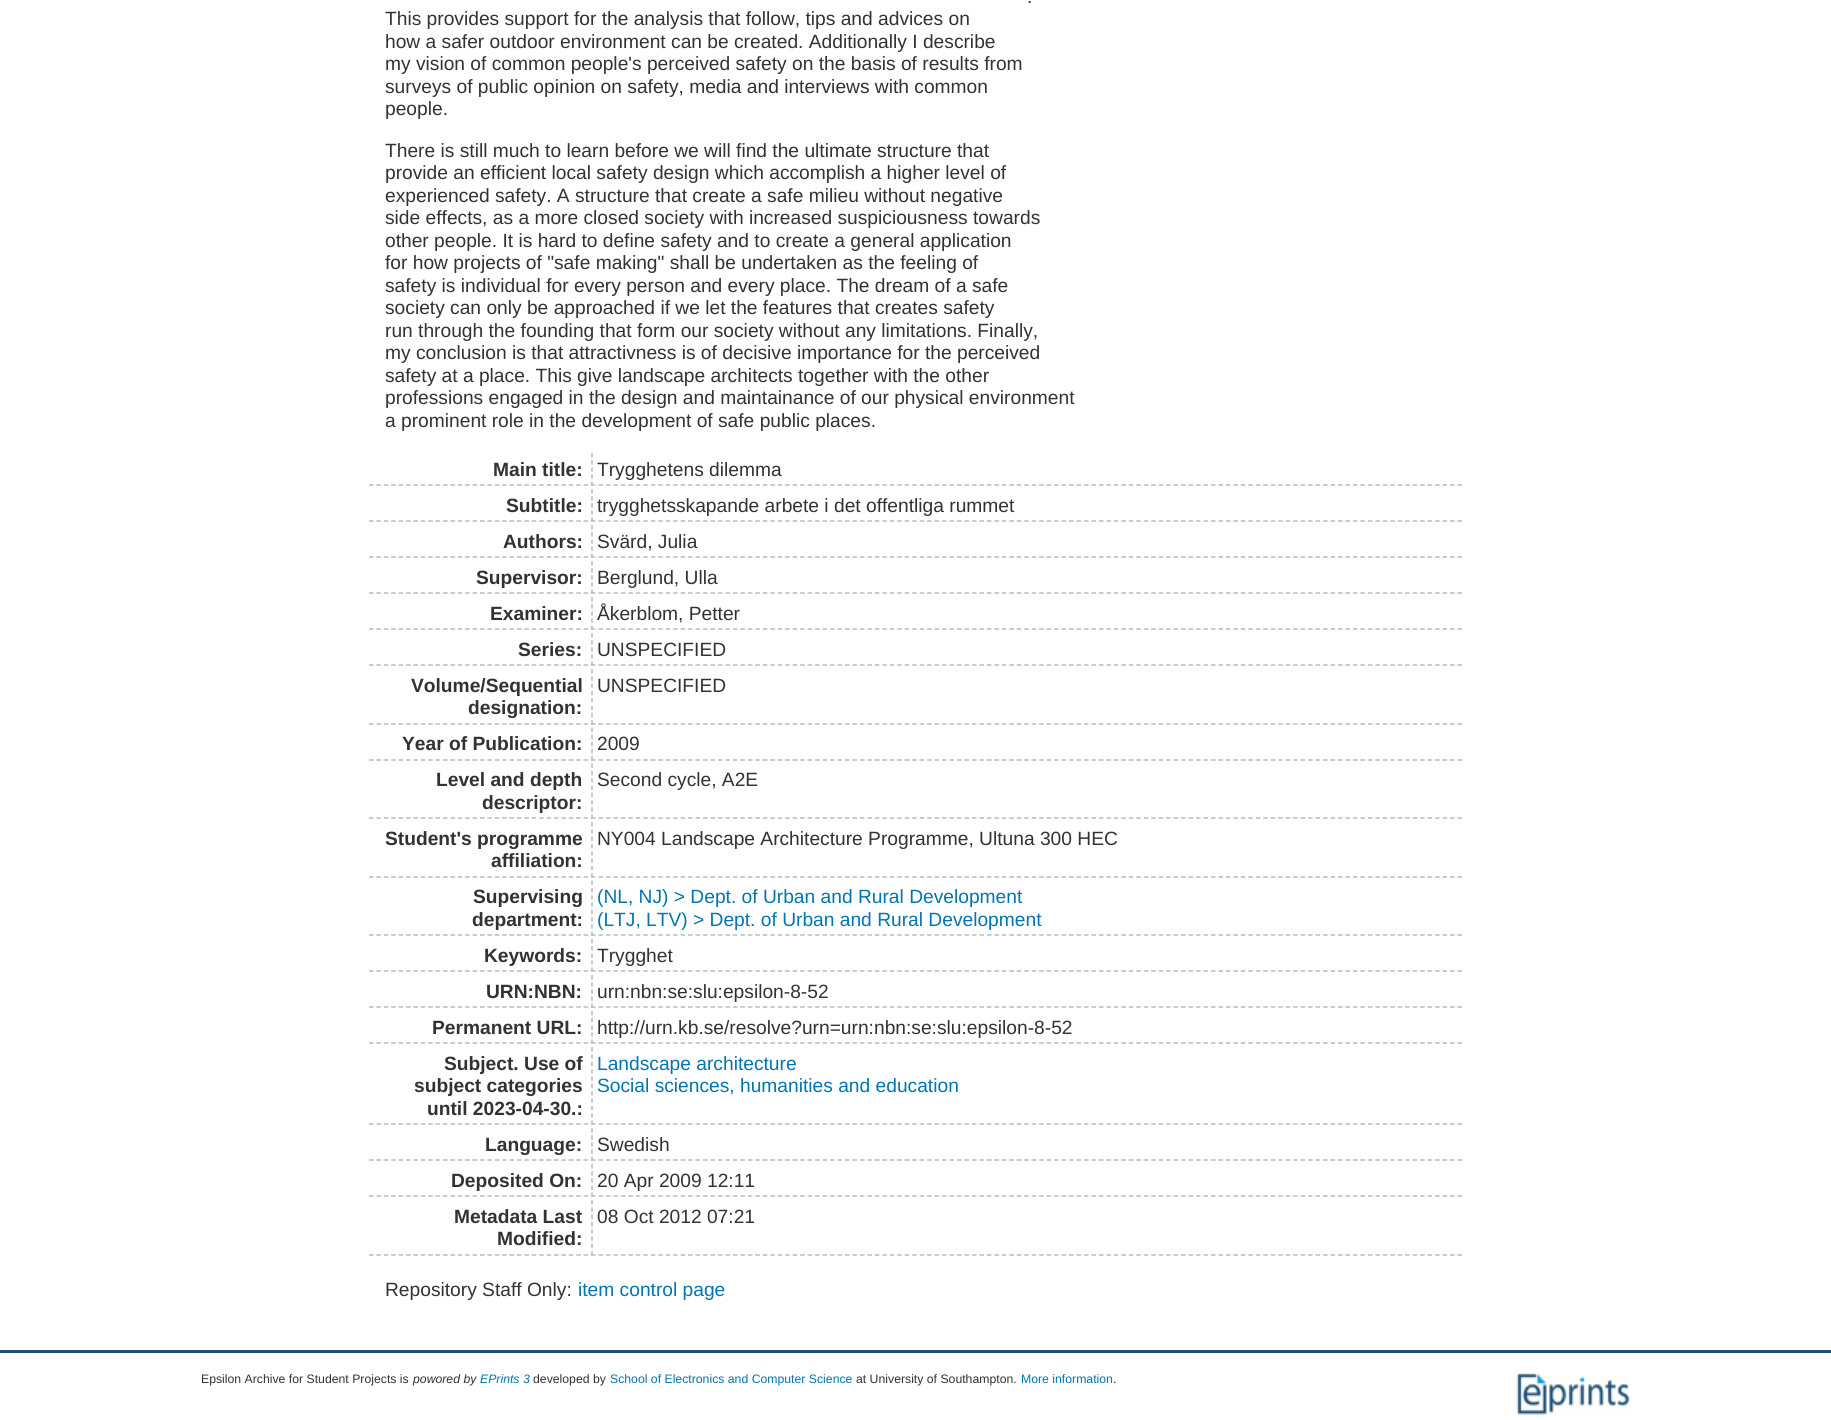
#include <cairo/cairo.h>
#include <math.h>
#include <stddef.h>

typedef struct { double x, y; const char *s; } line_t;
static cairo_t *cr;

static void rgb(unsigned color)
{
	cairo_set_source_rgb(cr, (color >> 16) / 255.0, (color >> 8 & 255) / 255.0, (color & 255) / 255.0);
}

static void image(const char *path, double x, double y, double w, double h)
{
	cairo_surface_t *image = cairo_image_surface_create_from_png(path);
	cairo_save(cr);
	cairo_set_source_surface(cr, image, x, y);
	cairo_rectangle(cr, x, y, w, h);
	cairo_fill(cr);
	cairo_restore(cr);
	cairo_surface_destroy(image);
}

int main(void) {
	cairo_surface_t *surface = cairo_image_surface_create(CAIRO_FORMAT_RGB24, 1831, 1420);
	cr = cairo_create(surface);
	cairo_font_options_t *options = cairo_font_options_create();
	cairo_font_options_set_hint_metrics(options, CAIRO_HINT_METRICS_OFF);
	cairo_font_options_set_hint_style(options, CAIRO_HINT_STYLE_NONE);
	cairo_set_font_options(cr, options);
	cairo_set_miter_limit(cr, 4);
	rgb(0xffffff);
	cairo_paint(cr);
	cairo_new_path(cr);
	cairo_move_to(cr, 369, 485);
	cairo_line_to(cr, 588, 485);
	rgb(0xbbbbbb);
	cairo_set_line_width(cr, 1.5);
	cairo_set_dash(cr, (double[]){4.5, 2.9}, 2, 0);
	cairo_stroke(cr);
	cairo_new_path(cr);
	cairo_move_to(cr, 591, 485);
	cairo_line_to(cr, 1462.5, 485);
	cairo_set_dash(cr, (double[]){4.5, 2.97}, 2, 0);
	cairo_stroke(cr);
	cairo_new_path(cr);
	cairo_move_to(cr, 592, 453);
	cairo_line_to(cr, 592, 486);
	cairo_set_dash(cr, (double[]){4.5, 2.62}, 2, 0);
	cairo_stroke(cr);
	cairo_new_path(cr);
	cairo_move_to(cr, 369, 521);
	cairo_line_to(cr, 588, 521);
	cairo_set_dash(cr, (double[]){4.5, 2.9}, 2, 0);
	cairo_stroke(cr);
	cairo_new_path(cr);
	cairo_move_to(cr, 591, 521);
	cairo_line_to(cr, 1462.5, 521);
	cairo_set_dash(cr, (double[]){4.5, 2.97}, 2, 0);
	cairo_stroke(cr);
	cairo_new_path(cr);
	cairo_move_to(cr, 592, 489);
	cairo_line_to(cr, 592, 522);
	cairo_set_dash(cr, (double[]){4.5, 2.62}, 2, 0);
	cairo_stroke(cr);
	cairo_new_path(cr);
	cairo_move_to(cr, 369, 557);
	cairo_line_to(cr, 588, 557);
	cairo_set_dash(cr, (double[]){4.5, 2.9}, 2, 0);
	cairo_stroke(cr);
	cairo_new_path(cr);
	cairo_move_to(cr, 591, 557);
	cairo_line_to(cr, 1462.5, 557);
	cairo_set_dash(cr, (double[]){4.5, 2.97}, 2, 0);
	cairo_stroke(cr);
	cairo_new_path(cr);
	cairo_move_to(cr, 592, 525);
	cairo_line_to(cr, 592, 558);
	cairo_set_dash(cr, (double[]){4.5, 2.62}, 2, 0);
	cairo_stroke(cr);
	cairo_new_path(cr);
	cairo_move_to(cr, 369, 593);
	cairo_line_to(cr, 588, 593);
	cairo_set_dash(cr, (double[]){4.5, 2.9}, 2, 0);
	cairo_stroke(cr);
	cairo_new_path(cr);
	cairo_move_to(cr, 591, 593);
	cairo_line_to(cr, 1462.5, 593);
	cairo_set_dash(cr, (double[]){4.5, 2.97}, 2, 0);
	cairo_stroke(cr);
	cairo_new_path(cr);
	cairo_move_to(cr, 592, 561);
	cairo_line_to(cr, 592, 594);
	cairo_set_dash(cr, (double[]){4.5, 2.62}, 2, 0);
	cairo_stroke(cr);
	cairo_new_path(cr);
	cairo_move_to(cr, 369, 629);
	cairo_line_to(cr, 588, 629);
	cairo_set_dash(cr, (double[]){4.5, 2.9}, 2, 0);
	cairo_stroke(cr);
	cairo_new_path(cr);
	cairo_move_to(cr, 591, 629);
	cairo_line_to(cr, 1462.5, 629);
	cairo_set_dash(cr, (double[]){4.5, 2.97}, 2, 0);
	cairo_stroke(cr);
	cairo_new_path(cr);
	cairo_move_to(cr, 592, 597);
	cairo_line_to(cr, 592, 630);
	cairo_set_dash(cr, (double[]){4.5, 2.62}, 2, 0);
	cairo_stroke(cr);
	cairo_new_path(cr);
	cairo_move_to(cr, 369, 665);
	cairo_line_to(cr, 588, 665);
	cairo_set_dash(cr, (double[]){4.5, 2.9}, 2, 0);
	cairo_stroke(cr);
	cairo_new_path(cr);
	cairo_move_to(cr, 591, 665);
	cairo_line_to(cr, 1462.5, 665);
	cairo_set_dash(cr, (double[]){4.5, 2.97}, 2, 0);
	cairo_stroke(cr);
	cairo_new_path(cr);
	cairo_move_to(cr, 592, 633);
	cairo_line_to(cr, 592, 666);
	cairo_set_dash(cr, (double[]){4.5, 2.62}, 2, 0);
	cairo_stroke(cr);
	cairo_new_path(cr);
	cairo_move_to(cr, 369, 724);
	cairo_line_to(cr, 588, 724);
	cairo_set_dash(cr, (double[]){4.5, 2.9}, 2, 0);
	cairo_stroke(cr);
	cairo_new_path(cr);
	cairo_move_to(cr, 591, 724);
	cairo_line_to(cr, 1462.5, 724);
	cairo_set_dash(cr, (double[]){4.5, 2.97}, 2, 0);
	cairo_stroke(cr);
	cairo_new_path(cr);
	cairo_move_to(cr, 592, 669);
	cairo_line_to(cr, 592, 724.5);
	cairo_set_dash(cr, (double[]){4.5, 2.79}, 2, 0);
	cairo_stroke(cr);
	cairo_new_path(cr);
	cairo_move_to(cr, 369, 760);
	cairo_line_to(cr, 588, 760);
	cairo_set_dash(cr, (double[]){4.5, 2.9}, 2, 0);
	cairo_stroke(cr);
	cairo_new_path(cr);
	cairo_move_to(cr, 591, 760);
	cairo_line_to(cr, 1462.5, 760);
	cairo_set_dash(cr, (double[]){4.5, 2.97}, 2, 0);
	cairo_stroke(cr);
	cairo_new_path(cr);
	cairo_move_to(cr, 592, 727.5);
	cairo_line_to(cr, 592, 760.5);
	cairo_set_dash(cr, (double[]){4.5, 2.62}, 2, 0);
	cairo_stroke(cr);
	cairo_new_path(cr);
	cairo_move_to(cr, 369, 818);
	cairo_line_to(cr, 588, 818);
	cairo_set_dash(cr, (double[]){4.5, 2.9}, 2, 0);
	cairo_stroke(cr);
	cairo_new_path(cr);
	cairo_move_to(cr, 591, 818);
	cairo_line_to(cr, 1462.5, 818);
	cairo_set_dash(cr, (double[]){4.5, 2.97}, 2, 0);
	cairo_stroke(cr);
	cairo_new_path(cr);
	cairo_move_to(cr, 592, 763.5);
	cairo_line_to(cr, 592, 819);
	cairo_set_dash(cr, (double[]){4.5, 2.79}, 2, 0);
	cairo_stroke(cr);
	cairo_new_path(cr);
	cairo_move_to(cr, 369, 877);
	cairo_line_to(cr, 588, 877);
	cairo_set_dash(cr, (double[]){4.5, 2.9}, 2, 0);
	cairo_stroke(cr);
	cairo_new_path(cr);
	cairo_move_to(cr, 591, 877);
	cairo_line_to(cr, 1462.5, 877);
	cairo_set_dash(cr, (double[]){4.5, 2.97}, 2, 0);
	cairo_stroke(cr);
	cairo_new_path(cr);
	cairo_move_to(cr, 592, 822);
	cairo_line_to(cr, 592, 877.5);
	cairo_set_dash(cr, (double[]){4.5, 2.79}, 2, 0);
	cairo_stroke(cr);
	cairo_new_path(cr);
	cairo_move_to(cr, 369, 935);
	cairo_line_to(cr, 588, 935);
	cairo_set_dash(cr, (double[]){4.5, 2.9}, 2, 0);
	cairo_stroke(cr);
	cairo_new_path(cr);
	cairo_move_to(cr, 591, 935);
	cairo_line_to(cr, 1462.5, 935);
	cairo_set_dash(cr, (double[]){4.5, 2.97}, 2, 0);
	cairo_stroke(cr);
	cairo_new_path(cr);
	cairo_move_to(cr, 592, 880.5);
	cairo_line_to(cr, 592, 936);
	cairo_set_dash(cr, (double[]){4.5, 2.79}, 2, 0);
	cairo_stroke(cr);
	cairo_new_path(cr);
	cairo_move_to(cr, 369, 971);
	cairo_line_to(cr, 588, 971);
	cairo_set_dash(cr, (double[]){4.5, 2.9}, 2, 0);
	cairo_stroke(cr);
	cairo_new_path(cr);
	cairo_move_to(cr, 591, 971);
	cairo_line_to(cr, 1462.5, 971);
	cairo_set_dash(cr, (double[]){4.5, 2.97}, 2, 0);
	cairo_stroke(cr);
	cairo_new_path(cr);
	cairo_move_to(cr, 592, 939);
	cairo_line_to(cr, 592, 972);
	cairo_set_dash(cr, (double[]){4.5, 2.62}, 2, 0);
	cairo_stroke(cr);
	cairo_new_path(cr);
	cairo_move_to(cr, 369, 1007);
	cairo_line_to(cr, 588, 1007);
	cairo_set_dash(cr, (double[]){4.5, 2.9}, 2, 0);
	cairo_stroke(cr);
	cairo_new_path(cr);
	cairo_move_to(cr, 591, 1007);
	cairo_line_to(cr, 1462.5, 1007);
	cairo_set_dash(cr, (double[]){4.5, 2.97}, 2, 0);
	cairo_stroke(cr);
	cairo_new_path(cr);
	cairo_move_to(cr, 592, 975);
	cairo_line_to(cr, 592, 1008);
	cairo_set_dash(cr, (double[]){4.5, 2.62}, 2, 0);
	cairo_stroke(cr);
	cairo_new_path(cr);
	cairo_move_to(cr, 369, 1043);
	cairo_line_to(cr, 588, 1043);
	cairo_set_dash(cr, (double[]){4.5, 2.9}, 2, 0);
	cairo_stroke(cr);
	cairo_new_path(cr);
	cairo_move_to(cr, 591, 1043);
	cairo_line_to(cr, 1462.5, 1043);
	cairo_set_dash(cr, (double[]){4.5, 2.97}, 2, 0);
	cairo_stroke(cr);
	cairo_new_path(cr);
	cairo_move_to(cr, 592, 1011);
	cairo_line_to(cr, 592, 1044);
	cairo_set_dash(cr, (double[]){4.5, 2.62}, 2, 0);
	cairo_stroke(cr);
	cairo_new_path(cr);
	cairo_move_to(cr, 369, 1124);
	cairo_line_to(cr, 588, 1124);
	cairo_set_dash(cr, (double[]){4.5, 2.9}, 2, 0);
	cairo_stroke(cr);
	cairo_new_path(cr);
	cairo_move_to(cr, 591, 1124);
	cairo_line_to(cr, 1462.5, 1124);
	cairo_set_dash(cr, (double[]){4.5, 2.97}, 2, 0);
	cairo_stroke(cr);
	cairo_new_path(cr);
	cairo_move_to(cr, 592, 1047);
	cairo_line_to(cr, 592, 1125);
	cairo_set_dash(cr, (double[]){4.5, 2.85}, 2, 0);
	cairo_stroke(cr);
	cairo_new_path(cr);
	cairo_move_to(cr, 369, 1160);
	cairo_line_to(cr, 588, 1160);
	cairo_set_dash(cr, (double[]){4.5, 2.9}, 2, 0);
	cairo_stroke(cr);
	cairo_new_path(cr);
	cairo_move_to(cr, 591, 1160);
	cairo_line_to(cr, 1462.5, 1160);
	cairo_set_dash(cr, (double[]){4.5, 2.97}, 2, 0);
	cairo_stroke(cr);
	cairo_new_path(cr);
	cairo_move_to(cr, 592, 1128);
	cairo_line_to(cr, 592, 1161);
	cairo_set_dash(cr, (double[]){4.5, 2.62}, 2, 0);
	cairo_stroke(cr);
	cairo_new_path(cr);
	cairo_move_to(cr, 369, 1196);
	cairo_line_to(cr, 588, 1196);
	cairo_set_dash(cr, (double[]){4.5, 2.9}, 2, 0);
	cairo_stroke(cr);
	cairo_new_path(cr);
	cairo_move_to(cr, 591, 1196);
	cairo_line_to(cr, 1462.5, 1196);
	cairo_set_dash(cr, (double[]){4.5, 2.97}, 2, 0);
	cairo_stroke(cr);
	cairo_new_path(cr);
	cairo_move_to(cr, 592, 1164);
	cairo_line_to(cr, 592, 1197);
	cairo_set_dash(cr, (double[]){4.5, 2.62}, 2, 0);
	cairo_stroke(cr);
	cairo_new_path(cr);
	cairo_move_to(cr, 369, 1255);
	cairo_line_to(cr, 588, 1255);
	cairo_set_dash(cr, (double[]){4.5, 2.9}, 2, 0);
	cairo_stroke(cr);
	cairo_new_path(cr);
	cairo_move_to(cr, 591, 1255);
	cairo_line_to(cr, 1462.5, 1255);
	cairo_set_dash(cr, (double[]){4.5, 2.97}, 2, 0);
	cairo_stroke(cr);
	cairo_new_path(cr);
	cairo_move_to(cr, 592, 1200);
	cairo_line_to(cr, 592, 1255.5);
	cairo_set_dash(cr, (double[]){4.5, 2.79}, 2, 0);
	cairo_stroke(cr);
	rgb(0x204f76);
	cairo_rectangle(cr, 0, 1350, 1831, 3);
	cairo_fill(cr);
	image("img/1.png", 1515, 1373, 115, 43);
	cairo_select_font_face(cr, "Liberation Sans", CAIRO_FONT_SLANT_NORMAL, CAIRO_FONT_WEIGHT_NORMAL);
	cairo_set_font_size(cr, 19.2);
	rgb(0x32322f);
	{
		static const line_t items[] = {
			{1027, 3, "."},
			{385, 25, "This provides support for the analysis that follow, tips and advices on"},
			{385, 48, "how a safer outdoor environment can be created. Additionally I describe"},
			{385, 70, "my vision of common people's perceived safety on the basis of results from"},
			{385, 93, "surveys of public opinion on safety, media and interviews with common"},
			{385, 115, "people."},
			{385, 157, "There is still much to learn before we will find the ultimate structure that"},
			{385, 179, "provide an efficient local safety design which accomplish a higher level of"},
			{385, 202, "experienced safety. A structure that create a safe milieu without negative"},
			{385, 224, "side effects, as a more closed society with increased suspiciousness towards"},
			{385, 247, "other people. It is hard to define safety and to create a general application"},
			{385, 269, "for how projects of \"safe making\" shall be undertaken as the feeling of"},
			{385, 292, "safety is individual for every person and every place. The dream of a safe"},
			{385, 314, "society can only be approached if we let the features that creates safety"},
			{385, 337, "run through the founding that form our society without any limitations. Finally,"},
			{385, 359, "my conclusion is that attractivness is of decisive importance for the perceived"},
			{385, 382, "safety at a place. This give landscape architects together with the other"},
			{385, 404, "professions engaged in the design and maintainance of our physical environment"},
			{385, 427, "a prominent role in the development of safe public places."},
		};
		for (size_t i = 0; i < sizeof items / sizeof *items; i++) {
			cairo_move_to(cr, items[i].x, items[i].y);
			cairo_show_text(cr, items[i].s);
		}
	}
	cairo_select_font_face(cr, "Liberation Sans", CAIRO_FONT_SLANT_NORMAL, CAIRO_FONT_WEIGHT_BOLD);
	cairo_move_to(cr, 493, 476);
	cairo_show_text(cr, "Main title:");
	cairo_select_font_face(cr, "Liberation Sans", CAIRO_FONT_SLANT_NORMAL, CAIRO_FONT_WEIGHT_NORMAL);
	cairo_move_to(cr, 597, 476);
	cairo_show_text(cr, "Trygghetens dilemma");
	cairo_select_font_face(cr, "Liberation Sans", CAIRO_FONT_SLANT_NORMAL, CAIRO_FONT_WEIGHT_BOLD);
	cairo_move_to(cr, 506, 512);
	cairo_show_text(cr, "Subtitle:");
	cairo_select_font_face(cr, "Liberation Sans", CAIRO_FONT_SLANT_NORMAL, CAIRO_FONT_WEIGHT_NORMAL);
	cairo_move_to(cr, 597, 512);
	cairo_show_text(cr, "trygghetsskapande arbete i det offentliga rummet");
	cairo_select_font_face(cr, "Liberation Sans", CAIRO_FONT_SLANT_NORMAL, CAIRO_FONT_WEIGHT_BOLD);
	cairo_move_to(cr, 503, 548);
	cairo_show_text(cr, "Authors:");
	cairo_select_font_face(cr, "Liberation Sans", CAIRO_FONT_SLANT_NORMAL, CAIRO_FONT_WEIGHT_NORMAL);
	cairo_move_to(cr, 597, 548);
	cairo_show_text(cr, "Svärd, Julia");
	cairo_select_font_face(cr, "Liberation Sans", CAIRO_FONT_SLANT_NORMAL, CAIRO_FONT_WEIGHT_BOLD);
	cairo_move_to(cr, 476, 584);
	cairo_show_text(cr, "Supervisor:");
	cairo_select_font_face(cr, "Liberation Sans", CAIRO_FONT_SLANT_NORMAL, CAIRO_FONT_WEIGHT_NORMAL);
	cairo_move_to(cr, 597, 584);
	cairo_show_text(cr, "Berglund, Ulla");
	cairo_select_font_face(cr, "Liberation Sans", CAIRO_FONT_SLANT_NORMAL, CAIRO_FONT_WEIGHT_BOLD);
	cairo_move_to(cr, 490, 620);
	cairo_show_text(cr, "Examiner:");
	cairo_select_font_face(cr, "Liberation Sans", CAIRO_FONT_SLANT_NORMAL, CAIRO_FONT_WEIGHT_NORMAL);
	cairo_move_to(cr, 597, 620);
	cairo_show_text(cr, "Åkerblom, Petter");
	cairo_select_font_face(cr, "Liberation Sans", CAIRO_FONT_SLANT_NORMAL, CAIRO_FONT_WEIGHT_BOLD);
	cairo_move_to(cr, 518, 656);
	cairo_show_text(cr, "Series:");
	cairo_select_font_face(cr, "Liberation Sans", CAIRO_FONT_SLANT_NORMAL, CAIRO_FONT_WEIGHT_NORMAL);
	cairo_move_to(cr, 597, 656);
	cairo_show_text(cr, "UNSPECIFIED");
	cairo_select_font_face(cr, "Liberation Sans", CAIRO_FONT_SLANT_NORMAL, CAIRO_FONT_WEIGHT_BOLD);
	cairo_move_to(cr, 411, 692);
	cairo_show_text(cr, "Volume/Sequential");
	cairo_move_to(cr, 468, 714);
	cairo_show_text(cr, "designation:");
	cairo_select_font_face(cr, "Liberation Sans", CAIRO_FONT_SLANT_NORMAL, CAIRO_FONT_WEIGHT_NORMAL);
	cairo_move_to(cr, 597, 692);
	cairo_show_text(cr, "UNSPECIFIED");
	cairo_select_font_face(cr, "Liberation Sans", CAIRO_FONT_SLANT_NORMAL, CAIRO_FONT_WEIGHT_BOLD);
	cairo_move_to(cr, 402, 750);
	cairo_show_text(cr, "Year of Publication:");
	cairo_select_font_face(cr, "Liberation Sans", CAIRO_FONT_SLANT_NORMAL, CAIRO_FONT_WEIGHT_NORMAL);
	cairo_move_to(cr, 597, 750);
	cairo_show_text(cr, "2009");
	cairo_select_font_face(cr, "Liberation Sans", CAIRO_FONT_SLANT_NORMAL, CAIRO_FONT_WEIGHT_BOLD);
	cairo_move_to(cr, 436, 786);
	cairo_show_text(cr, "Level and depth");
	cairo_move_to(cr, 482, 809);
	cairo_show_text(cr, "descriptor:");
	cairo_select_font_face(cr, "Liberation Sans", CAIRO_FONT_SLANT_NORMAL, CAIRO_FONT_WEIGHT_NORMAL);
	cairo_move_to(cr, 597, 786);
	cairo_show_text(cr, "Second cycle, A2E");
	cairo_select_font_face(cr, "Liberation Sans", CAIRO_FONT_SLANT_NORMAL, CAIRO_FONT_WEIGHT_BOLD);
	cairo_move_to(cr, 385, 845);
	cairo_show_text(cr, "Student's programme");
	cairo_move_to(cr, 491, 867);
	cairo_show_text(cr, "affiliation:");
	cairo_select_font_face(cr, "Liberation Sans", CAIRO_FONT_SLANT_NORMAL, CAIRO_FONT_WEIGHT_NORMAL);
	cairo_move_to(cr, 597, 845);
	cairo_show_text(cr, "NY004 Landscape Architecture Programme, Ultuna 300 HEC");
	cairo_select_font_face(cr, "Liberation Sans", CAIRO_FONT_SLANT_NORMAL, CAIRO_FONT_WEIGHT_BOLD);
	cairo_move_to(cr, 473, 903);
	cairo_show_text(cr, "Supervising");
	cairo_move_to(cr, 472, 926);
	cairo_show_text(cr, "department:");
	cairo_select_font_face(cr, "Liberation Sans", CAIRO_FONT_SLANT_NORMAL, CAIRO_FONT_WEIGHT_NORMAL);
	rgb(0x0075b0);
	cairo_move_to(cr, 597, 903);
	cairo_show_text(cr, "(NL, NJ) > Dept. of Urban and Rural Development");
	cairo_move_to(cr, 597, 926);
	cairo_show_text(cr, "(LTJ, LTV) > Dept. of Urban and Rural Development");
	cairo_select_font_face(cr, "Liberation Sans", CAIRO_FONT_SLANT_NORMAL, CAIRO_FONT_WEIGHT_BOLD);
	rgb(0x32322f);
	cairo_move_to(cr, 484, 962);
	cairo_show_text(cr, "Keywords:");
	cairo_select_font_face(cr, "Liberation Sans", CAIRO_FONT_SLANT_NORMAL, CAIRO_FONT_WEIGHT_NORMAL);
	cairo_move_to(cr, 597, 962);
	cairo_show_text(cr, "Trygghet");
	cairo_select_font_face(cr, "Liberation Sans", CAIRO_FONT_SLANT_NORMAL, CAIRO_FONT_WEIGHT_BOLD);
	cairo_move_to(cr, 486, 998);
	cairo_show_text(cr, "URN:NBN:");
	cairo_select_font_face(cr, "Liberation Sans", CAIRO_FONT_SLANT_NORMAL, CAIRO_FONT_WEIGHT_NORMAL);
	cairo_move_to(cr, 597, 998);
	cairo_show_text(cr, "urn:nbn:se:slu:epsilon-8-52");
	cairo_select_font_face(cr, "Liberation Sans", CAIRO_FONT_SLANT_NORMAL, CAIRO_FONT_WEIGHT_BOLD);
	cairo_move_to(cr, 432, 1034);
	cairo_show_text(cr, "Permanent URL:");
	cairo_select_font_face(cr, "Liberation Sans", CAIRO_FONT_SLANT_NORMAL, CAIRO_FONT_WEIGHT_NORMAL);
	cairo_move_to(cr, 597, 1034);
	cairo_show_text(cr, "http://urn.kb.se/resolve?urn=urn:nbn:se:slu:epsilon-8-52");
	cairo_select_font_face(cr, "Liberation Sans", CAIRO_FONT_SLANT_NORMAL, CAIRO_FONT_WEIGHT_BOLD);
	{
		static const line_t items[] = {
			{444, 1070, "Subject. Use of"},
			{414, 1092, "subject categories"},
			{427, 1115, "until 2023-04-30.:"},
		};
		for (size_t i = 0; i < sizeof items / sizeof *items; i++) {
			cairo_move_to(cr, items[i].x, items[i].y);
			cairo_show_text(cr, items[i].s);
		}
	}
	cairo_select_font_face(cr, "Liberation Sans", CAIRO_FONT_SLANT_NORMAL, CAIRO_FONT_WEIGHT_NORMAL);
	rgb(0x0075b0);
	cairo_move_to(cr, 597, 1070);
	cairo_show_text(cr, "Landscape architecture");
	cairo_move_to(cr, 597, 1092);
	cairo_show_text(cr, "Social sciences, humanities and education");
	cairo_select_font_face(cr, "Liberation Sans", CAIRO_FONT_SLANT_NORMAL, CAIRO_FONT_WEIGHT_BOLD);
	rgb(0x32322f);
	cairo_move_to(cr, 485, 1151);
	cairo_show_text(cr, "Language:");
	cairo_select_font_face(cr, "Liberation Sans", CAIRO_FONT_SLANT_NORMAL, CAIRO_FONT_WEIGHT_NORMAL);
	cairo_move_to(cr, 597, 1151);
	cairo_show_text(cr, "Swedish");
	cairo_select_font_face(cr, "Liberation Sans", CAIRO_FONT_SLANT_NORMAL, CAIRO_FONT_WEIGHT_BOLD);
	cairo_move_to(cr, 451, 1187);
	cairo_show_text(cr, "Deposited On:");
	cairo_select_font_face(cr, "Liberation Sans", CAIRO_FONT_SLANT_NORMAL, CAIRO_FONT_WEIGHT_NORMAL);
	cairo_move_to(cr, 597, 1187);
	cairo_show_text(cr, "20 Apr 2009 12:11");
	cairo_select_font_face(cr, "Liberation Sans", CAIRO_FONT_SLANT_NORMAL, CAIRO_FONT_WEIGHT_BOLD);
	cairo_move_to(cr, 454, 1223);
	cairo_show_text(cr, "Metadata Last");
	cairo_move_to(cr, 497, 1245);
	cairo_show_text(cr, "Modified:");
	cairo_select_font_face(cr, "Liberation Sans", CAIRO_FONT_SLANT_NORMAL, CAIRO_FONT_WEIGHT_NORMAL);
	cairo_move_to(cr, 597, 1223);
	cairo_show_text(cr, "08 Oct 2012 07:21");
	cairo_move_to(cr, 385, 1296);
	cairo_show_text(cr, "Repository Staff Only:");
	rgb(0x0075b0);
	cairo_move_to(cr, 578, 1296);
	cairo_show_text(cr, "item control page");
	cairo_set_font_size(cr, 12.25);
	rgb(0x32322f);
	cairo_move_to(cr, 201, 1383);
	cairo_show_text(cr, "Epsilon Archive for Student Projects is");
	cairo_select_font_face(cr, "Liberation Sans", CAIRO_FONT_SLANT_ITALIC, CAIRO_FONT_WEIGHT_NORMAL);
	cairo_move_to(cr, 413, 1383);
	cairo_show_text(cr, "powored by");
	rgb(0x0075b0);
	cairo_move_to(cr, 480, 1383);
	cairo_show_text(cr, "EPrints 3");
	cairo_select_font_face(cr, "Liberation Sans", CAIRO_FONT_SLANT_NORMAL, CAIRO_FONT_WEIGHT_NORMAL);
	rgb(0x32322f);
	cairo_move_to(cr, 533, 1383);
	cairo_show_text(cr, "developed by");
	rgb(0x0075b0);
	cairo_move_to(cr, 610, 1383);
	cairo_show_text(cr, "School of Electronics and Computer Science");
	rgb(0x32322f);
	cairo_move_to(cr, 856, 1383);
	cairo_show_text(cr, "at University of Southampton.");
	rgb(0x0075b0);
	cairo_move_to(cr, 1021, 1383);
	cairo_show_text(cr, "More information");
	rgb(0x32322f);
	cairo_move_to(cr, 1113, 1383);
	cairo_show_text(cr, ".");
	cairo_surface_write_to_png(surface, "page.png");
	cairo_font_options_destroy(options);
	cairo_destroy(cr);
	cairo_surface_destroy(surface);
	return 0;
}
